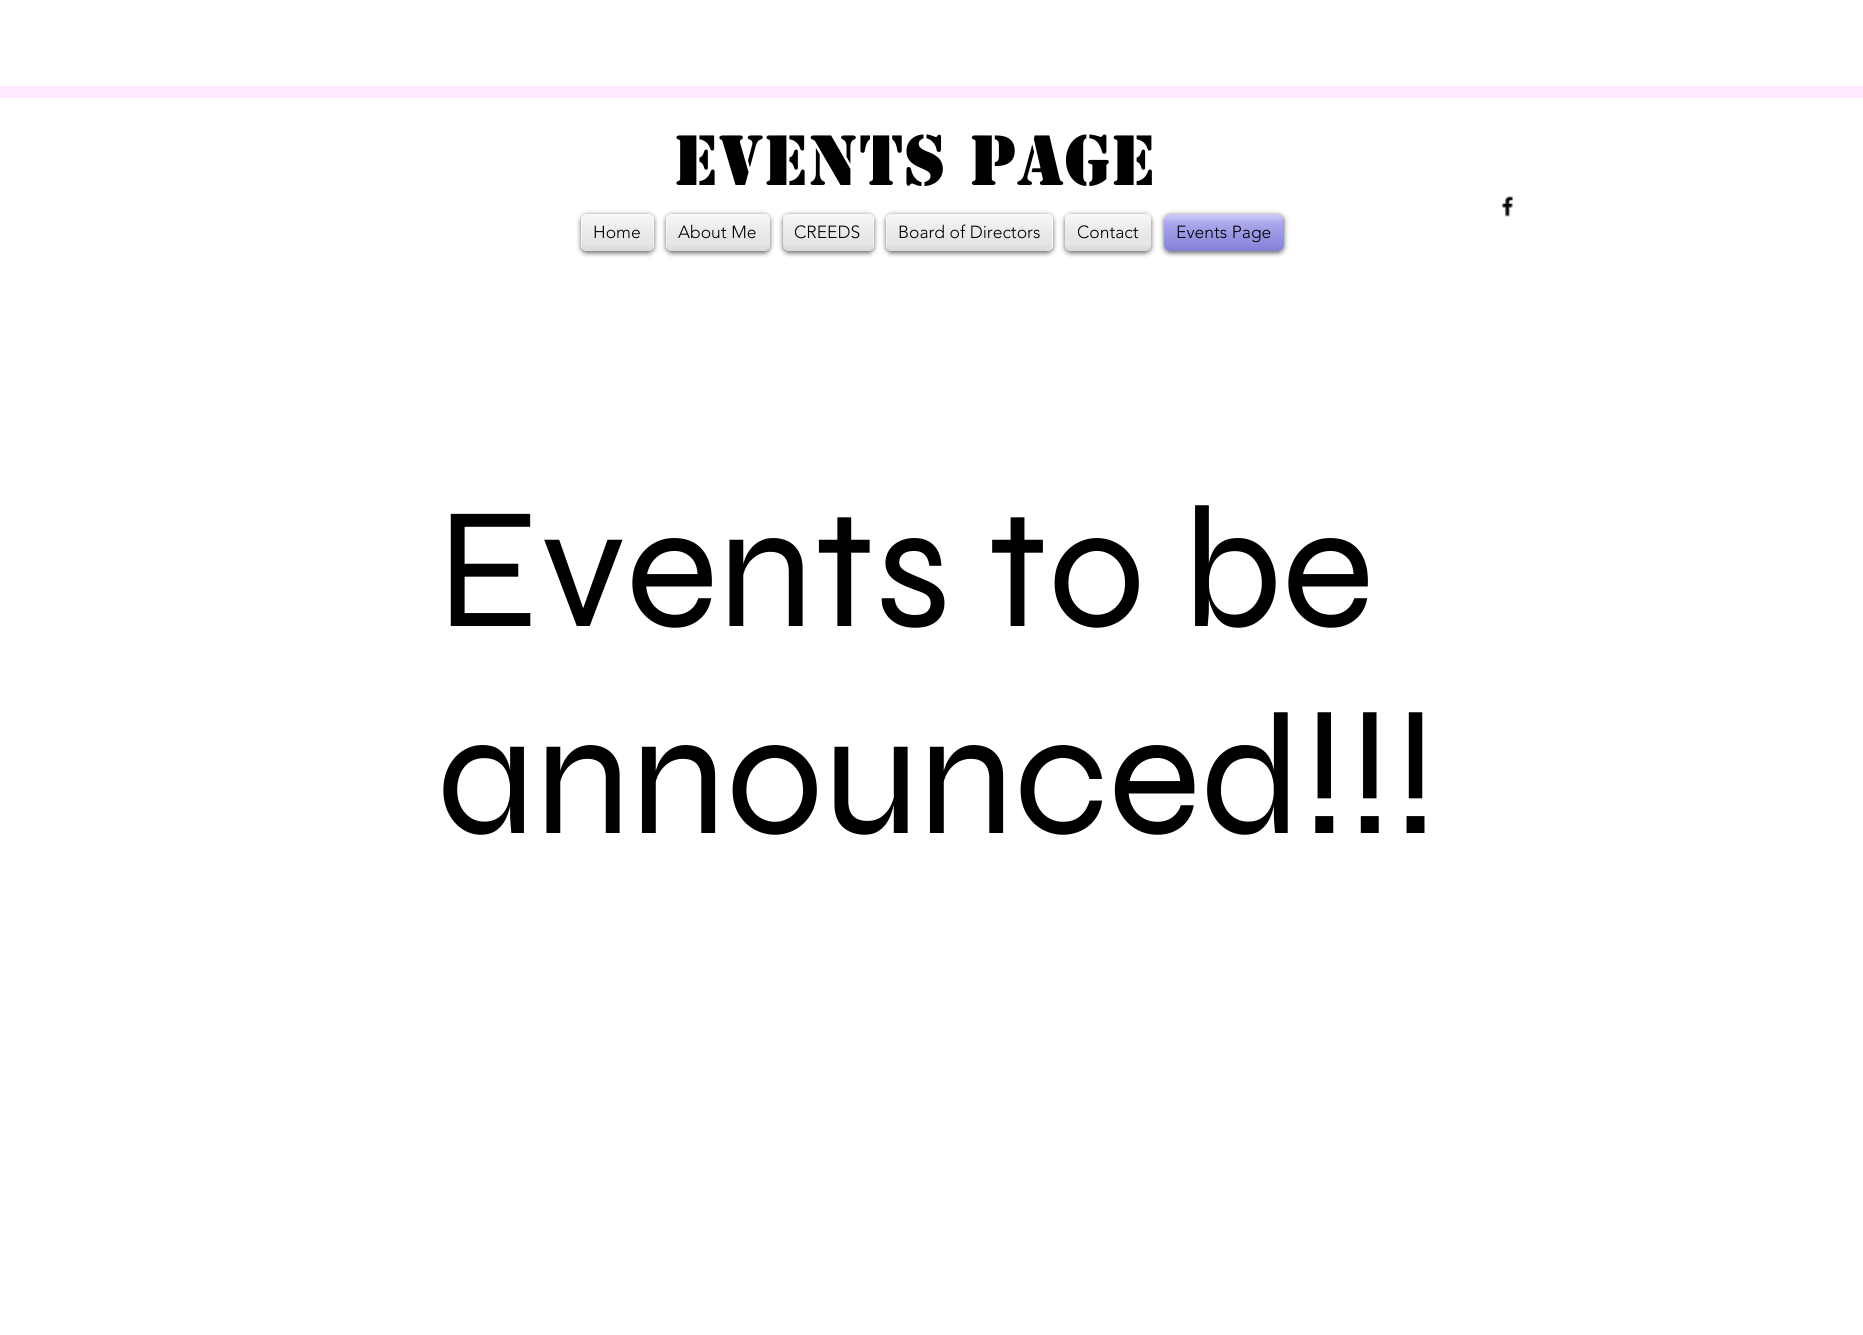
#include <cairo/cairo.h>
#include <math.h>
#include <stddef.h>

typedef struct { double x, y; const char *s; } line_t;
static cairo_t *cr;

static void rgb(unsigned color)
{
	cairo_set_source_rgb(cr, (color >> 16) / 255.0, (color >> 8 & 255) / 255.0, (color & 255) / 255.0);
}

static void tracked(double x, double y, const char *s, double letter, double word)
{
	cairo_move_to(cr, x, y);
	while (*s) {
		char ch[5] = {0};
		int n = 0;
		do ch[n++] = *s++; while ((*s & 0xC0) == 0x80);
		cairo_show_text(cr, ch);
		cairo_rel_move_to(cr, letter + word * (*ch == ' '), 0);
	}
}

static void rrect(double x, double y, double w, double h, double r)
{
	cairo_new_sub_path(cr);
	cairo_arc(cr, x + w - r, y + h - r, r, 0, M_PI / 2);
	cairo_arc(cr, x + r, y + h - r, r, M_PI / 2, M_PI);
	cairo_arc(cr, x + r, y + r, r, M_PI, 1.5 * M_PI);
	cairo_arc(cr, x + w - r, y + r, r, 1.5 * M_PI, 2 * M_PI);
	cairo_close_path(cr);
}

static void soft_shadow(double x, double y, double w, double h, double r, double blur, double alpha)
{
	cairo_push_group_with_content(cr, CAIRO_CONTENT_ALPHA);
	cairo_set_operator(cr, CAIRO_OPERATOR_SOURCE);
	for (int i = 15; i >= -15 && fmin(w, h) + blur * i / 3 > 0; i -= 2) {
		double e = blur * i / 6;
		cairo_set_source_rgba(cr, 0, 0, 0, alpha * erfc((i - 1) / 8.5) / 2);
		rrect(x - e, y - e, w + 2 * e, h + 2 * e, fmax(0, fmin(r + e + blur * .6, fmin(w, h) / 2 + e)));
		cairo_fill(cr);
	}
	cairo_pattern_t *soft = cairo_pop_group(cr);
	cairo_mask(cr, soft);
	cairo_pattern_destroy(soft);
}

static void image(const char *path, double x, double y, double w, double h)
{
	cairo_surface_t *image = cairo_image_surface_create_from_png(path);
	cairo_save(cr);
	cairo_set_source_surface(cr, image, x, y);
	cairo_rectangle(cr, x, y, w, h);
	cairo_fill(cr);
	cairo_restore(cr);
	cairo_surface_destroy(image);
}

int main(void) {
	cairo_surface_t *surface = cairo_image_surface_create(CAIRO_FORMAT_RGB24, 1863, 1335);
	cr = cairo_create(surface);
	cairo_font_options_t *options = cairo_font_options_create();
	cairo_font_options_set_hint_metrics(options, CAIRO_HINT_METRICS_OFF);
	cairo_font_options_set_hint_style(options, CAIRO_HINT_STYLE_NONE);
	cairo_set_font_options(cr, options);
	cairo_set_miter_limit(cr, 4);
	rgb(0xffffff);
	cairo_paint(cr);
	rgb(0xffebff);
	cairo_rectangle(cr, 0, 86, 1863, 12);
	cairo_fill(cr);
	cairo_save(cr);
	cairo_set_fill_rule(cr, CAIRO_FILL_RULE_EVEN_ODD);
	cairo_new_path(cr);
	cairo_move_to(cr, 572, 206);
	cairo_line_to(cr, 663, 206);
	cairo_line_to(cr, 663, 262);
	cairo_line_to(cr, 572, 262);
	cairo_close_path(cr);
	cairo_move_to(cr, 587, 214);
	cairo_line_to(cr, 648, 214);
	cairo_curve_to(cr, 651.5, 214, 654, 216.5, 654, 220);
	cairo_line_to(cr, 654, 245);
	cairo_curve_to(cr, 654, 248.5, 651.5, 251, 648, 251);
	cairo_line_to(cr, 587, 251);
	cairo_curve_to(cr, 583.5, 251, 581, 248.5, 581, 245);
	cairo_line_to(cr, 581, 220);
	cairo_curve_to(cr, 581, 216.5, 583.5, 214, 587, 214);
	cairo_close_path(cr);
	cairo_clip(cr);
	rgb(0x000000);
	soft_shadow(581, 215, 73, 38, 6, 2.5, 0.6);
	cairo_restore(cr);
	image("img/1.png", 581, 214, 73, 12);
	image("img/2.png", 581, 214, 73, 37);
	cairo_save(cr);
	cairo_set_fill_rule(cr, CAIRO_FILL_RULE_EVEN_ODD);
	cairo_new_path(cr);
	cairo_move_to(cr, 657, 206);
	cairo_line_to(cr, 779, 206);
	cairo_line_to(cr, 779, 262);
	cairo_line_to(cr, 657, 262);
	cairo_close_path(cr);
	cairo_move_to(cr, 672, 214);
	cairo_line_to(cr, 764, 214);
	cairo_curve_to(cr, 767.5, 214, 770, 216.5, 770, 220);
	cairo_line_to(cr, 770, 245);
	cairo_curve_to(cr, 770, 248.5, 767.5, 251, 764, 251);
	cairo_line_to(cr, 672, 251);
	cairo_curve_to(cr, 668.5, 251, 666, 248.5, 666, 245);
	cairo_line_to(cr, 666, 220);
	cairo_curve_to(cr, 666, 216.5, 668.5, 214, 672, 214);
	cairo_close_path(cr);
	cairo_clip(cr);
	rgb(0x000000);
	soft_shadow(666, 215, 104, 38, 6, 2.5, 0.6);
	cairo_restore(cr);
	image("img/3.png", 666, 214, 104, 12);
	image("img/4.png", 666, 214, 104, 37);
	cairo_save(cr);
	cairo_set_fill_rule(cr, CAIRO_FILL_RULE_EVEN_ODD);
	cairo_new_path(cr);
	cairo_move_to(cr, 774, 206);
	cairo_line_to(cr, 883, 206);
	cairo_line_to(cr, 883, 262);
	cairo_line_to(cr, 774, 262);
	cairo_close_path(cr);
	cairo_move_to(cr, 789, 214);
	cairo_line_to(cr, 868, 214);
	cairo_curve_to(cr, 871.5, 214, 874, 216.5, 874, 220);
	cairo_line_to(cr, 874, 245);
	cairo_curve_to(cr, 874, 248.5, 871.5, 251, 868, 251);
	cairo_line_to(cr, 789, 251);
	cairo_curve_to(cr, 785.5, 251, 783, 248.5, 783, 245);
	cairo_line_to(cr, 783, 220);
	cairo_curve_to(cr, 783, 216.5, 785.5, 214, 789, 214);
	cairo_close_path(cr);
	cairo_clip(cr);
	rgb(0x000000);
	soft_shadow(783, 215, 91, 38, 6, 2.5, 0.6);
	cairo_restore(cr);
	image("img/5.png", 783, 214, 91, 12);
	image("img/6.png", 782, 214, 92, 37);
	cairo_save(cr);
	cairo_set_fill_rule(cr, CAIRO_FILL_RULE_EVEN_ODD);
	cairo_new_path(cr);
	cairo_move_to(cr, 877, 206);
	cairo_line_to(cr, 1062, 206);
	cairo_line_to(cr, 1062, 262);
	cairo_line_to(cr, 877, 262);
	cairo_close_path(cr);
	cairo_move_to(cr, 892, 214);
	cairo_line_to(cr, 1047, 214);
	cairo_curve_to(cr, 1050.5, 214, 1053, 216.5, 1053, 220);
	cairo_line_to(cr, 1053, 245);
	cairo_curve_to(cr, 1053, 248.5, 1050.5, 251, 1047, 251);
	cairo_line_to(cr, 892, 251);
	cairo_curve_to(cr, 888.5, 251, 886, 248.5, 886, 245);
	cairo_line_to(cr, 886, 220);
	cairo_curve_to(cr, 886, 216.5, 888.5, 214, 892, 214);
	cairo_close_path(cr);
	cairo_clip(cr);
	rgb(0x000000);
	soft_shadow(886, 215, 167, 38, 6, 2.5, 0.6);
	cairo_restore(cr);
	image("img/7.png", 886, 214, 167, 12);
	image("img/8.png", 886, 214, 167, 37);
	cairo_save(cr);
	cairo_set_fill_rule(cr, CAIRO_FILL_RULE_EVEN_ODD);
	cairo_new_path(cr);
	cairo_move_to(cr, 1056, 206);
	cairo_line_to(cr, 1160, 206);
	cairo_line_to(cr, 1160, 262);
	cairo_line_to(cr, 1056, 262);
	cairo_close_path(cr);
	cairo_move_to(cr, 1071, 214);
	cairo_line_to(cr, 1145, 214);
	cairo_curve_to(cr, 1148.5, 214, 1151, 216.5, 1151, 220);
	cairo_line_to(cr, 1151, 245);
	cairo_curve_to(cr, 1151, 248.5, 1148.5, 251, 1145, 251);
	cairo_line_to(cr, 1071, 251);
	cairo_curve_to(cr, 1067.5, 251, 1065, 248.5, 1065, 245);
	cairo_line_to(cr, 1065, 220);
	cairo_curve_to(cr, 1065, 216.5, 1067.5, 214, 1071, 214);
	cairo_close_path(cr);
	cairo_clip(cr);
	rgb(0x000000);
	soft_shadow(1065, 215, 86, 38, 6, 2.5, 0.6);
	cairo_restore(cr);
	image("img/9.png", 1065, 214, 86, 5);
	image("img/10.png", 1065, 214, 86, 37);
	cairo_save(cr);
	cairo_set_fill_rule(cr, CAIRO_FILL_RULE_EVEN_ODD);
	cairo_new_path(cr);
	cairo_move_to(cr, 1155, 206);
	cairo_line_to(cr, 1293, 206);
	cairo_line_to(cr, 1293, 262);
	cairo_line_to(cr, 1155, 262);
	cairo_close_path(cr);
	cairo_move_to(cr, 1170, 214);
	cairo_line_to(cr, 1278, 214);
	cairo_curve_to(cr, 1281.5, 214, 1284, 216.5, 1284, 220);
	cairo_line_to(cr, 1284, 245);
	cairo_curve_to(cr, 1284, 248.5, 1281.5, 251, 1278, 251);
	cairo_line_to(cr, 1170, 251);
	cairo_curve_to(cr, 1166.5, 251, 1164, 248.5, 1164, 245);
	cairo_line_to(cr, 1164, 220);
	cairo_curve_to(cr, 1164, 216.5, 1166.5, 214, 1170, 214);
	cairo_close_path(cr);
	cairo_clip(cr);
	rgb(0x000000);
	soft_shadow(1164, 215, 120, 38, 6, 2.5, 0.6);
	cairo_restore(cr);
	cairo_set_source_rgba(cr, 0.09, 0.051, 0.949, 0.49);
	rrect(1164, 214, 120, 37, 6);
	cairo_fill(cr);
	image("img/11.png", 1164, 214, 120, 37);
	image("img/12.png", 1164, 214, 120, 37);
	image("img/13.png", 1502, 196, 12, 21);
	cairo_select_font_face(cr, "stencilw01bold", CAIRO_FONT_SLANT_NORMAL, CAIRO_FONT_WEIGHT_BOLD);
	cairo_set_font_size(cr, 66.25);
	rgb(0x000000);
	tracked(674, 185, "Events page", 0.75, 0);
	cairo_select_font_face(cr, "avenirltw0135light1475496 Light", CAIRO_FONT_SLANT_NORMAL, CAIRO_FONT_WEIGHT_NORMAL);
	cairo_set_font_size(cr, 17.5);
	{
		static const line_t items[] = {
			{593, 238, "Home"},
			{678, 238, "About Me"},
			{794, 238, "CREEDS"},
			{898, 238, "Board of Directors"},
			{1077, 238, "Contact"},
			{1176, 238, "Events Page"},
		};
		for (size_t i = 0; i < sizeof items / sizeof *items; i++) {
			cairo_move_to(cr, items[i].x, items[i].y);
			cairo_show_text(cr, items[i].s);
		}
	}
	cairo_select_font_face(cr, "Syne", CAIRO_FONT_SLANT_NORMAL, CAIRO_FONT_WEIGHT_NORMAL);
	cairo_set_font_size(cr, 172.5);
	cairo_move_to(cr, 437, 626);
	cairo_show_text(cr, "Events to be");
	cairo_move_to(cr, 437, 833);
	cairo_show_text(cr, "announced!!!");
	cairo_surface_write_to_png(surface, "page.png");
	cairo_font_options_destroy(options);
	cairo_destroy(cr);
	cairo_surface_destroy(surface);
	return 0;
}
